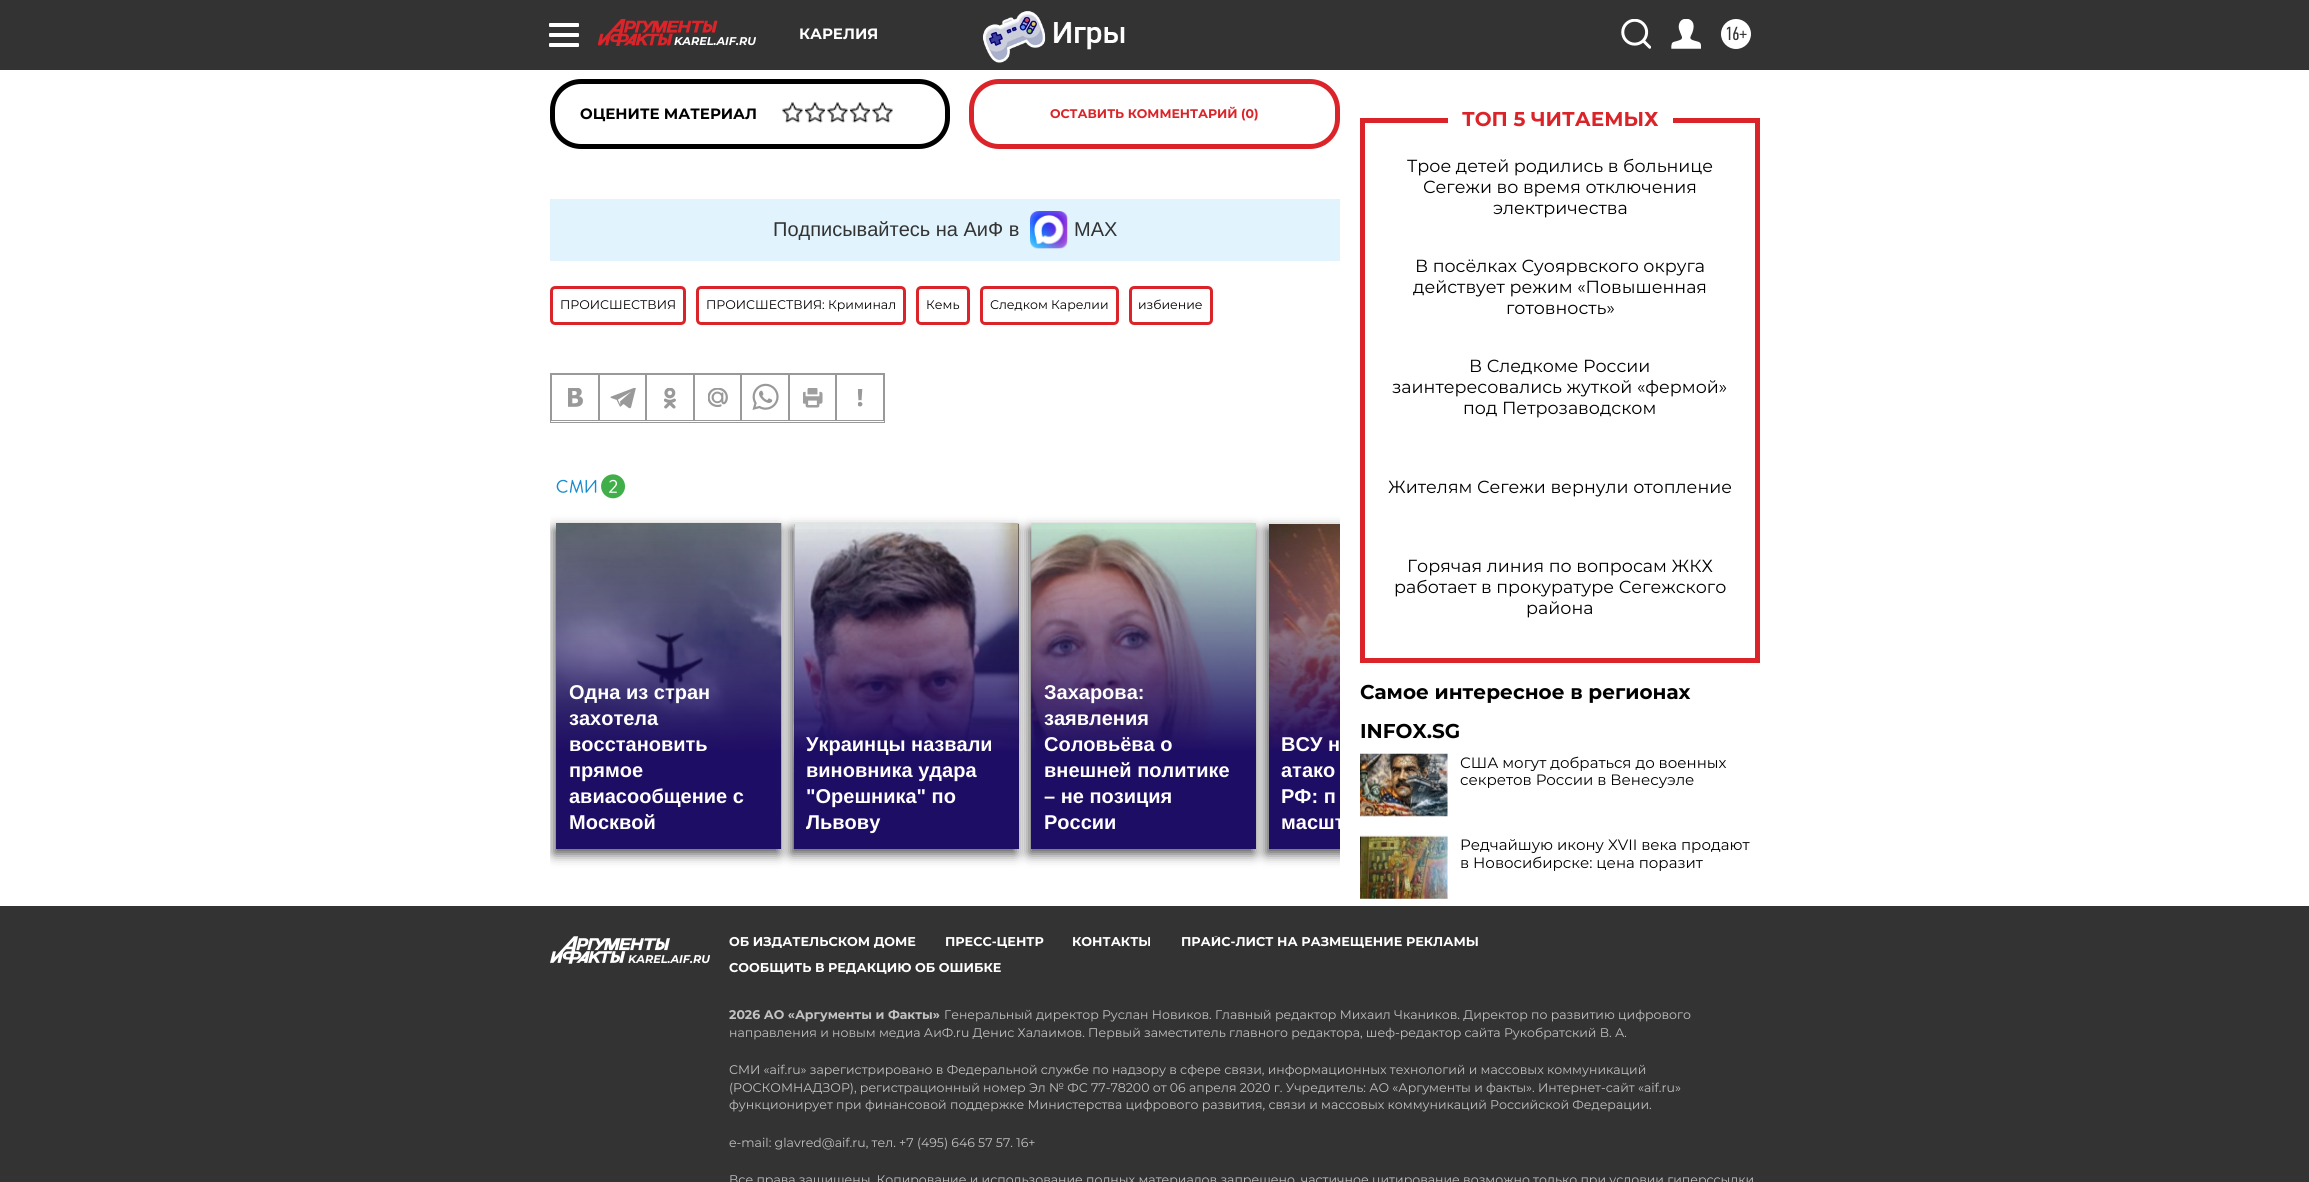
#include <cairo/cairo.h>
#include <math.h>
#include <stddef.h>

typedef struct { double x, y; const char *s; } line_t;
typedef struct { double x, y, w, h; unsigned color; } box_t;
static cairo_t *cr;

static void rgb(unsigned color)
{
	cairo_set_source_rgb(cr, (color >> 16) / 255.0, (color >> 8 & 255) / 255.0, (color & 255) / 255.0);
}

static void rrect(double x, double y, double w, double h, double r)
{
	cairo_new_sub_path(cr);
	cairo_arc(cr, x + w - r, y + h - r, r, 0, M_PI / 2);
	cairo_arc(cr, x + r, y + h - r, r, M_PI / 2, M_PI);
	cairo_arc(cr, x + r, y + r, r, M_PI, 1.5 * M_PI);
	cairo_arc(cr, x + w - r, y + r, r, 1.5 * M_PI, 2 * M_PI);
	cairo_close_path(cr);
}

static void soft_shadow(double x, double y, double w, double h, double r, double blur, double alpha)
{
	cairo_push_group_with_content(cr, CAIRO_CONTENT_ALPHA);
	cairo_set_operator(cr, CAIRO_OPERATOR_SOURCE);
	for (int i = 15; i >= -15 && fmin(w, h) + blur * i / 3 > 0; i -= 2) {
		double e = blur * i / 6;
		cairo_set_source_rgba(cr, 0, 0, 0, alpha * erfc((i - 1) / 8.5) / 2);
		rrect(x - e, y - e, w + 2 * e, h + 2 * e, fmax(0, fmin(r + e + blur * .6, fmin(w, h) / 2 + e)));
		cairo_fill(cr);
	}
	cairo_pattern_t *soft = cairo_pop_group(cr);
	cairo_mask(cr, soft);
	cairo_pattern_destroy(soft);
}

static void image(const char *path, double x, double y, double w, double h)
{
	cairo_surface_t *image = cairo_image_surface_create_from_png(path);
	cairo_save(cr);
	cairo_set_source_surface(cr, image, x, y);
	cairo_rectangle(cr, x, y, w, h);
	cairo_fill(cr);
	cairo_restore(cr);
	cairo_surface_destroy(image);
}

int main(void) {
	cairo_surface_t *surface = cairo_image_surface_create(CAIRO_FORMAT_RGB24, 2309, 1182);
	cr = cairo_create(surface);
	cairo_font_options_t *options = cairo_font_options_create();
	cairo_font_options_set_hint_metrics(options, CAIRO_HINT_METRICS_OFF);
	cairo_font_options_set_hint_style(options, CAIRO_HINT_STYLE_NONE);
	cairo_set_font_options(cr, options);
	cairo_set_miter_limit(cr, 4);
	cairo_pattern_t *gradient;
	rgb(0xffffff);
	cairo_paint(cr);
	rgb(0x333333);
	cairo_rectangle(cr, 0, 0, 2309, 70);
	cairo_fill(cr);
	rgb(0xffffff);
	rrect(549, 23, 30, 4, 1);
	cairo_fill(cr);
	rrect(549, 33, 30, 4, 1);
	cairo_fill(cr);
	rrect(549, 43, 30, 4, 1);
	cairo_fill(cr);
	image("img/1.png", 983, 11, 142, 52);
	image("img/2.png", 1621, 19, 30, 30);
	image("img/3.png", 1671, 19, 30, 30);
	cairo_arc(cr, 1736, 34, 15, 0, 2 * M_PI);
	cairo_fill(cr);
	image("img/4.png", 598, 19, 120, 27);
	rrect(552.5, 81.5, 395, 65, 28.5);
	rgb(0x000000);
	cairo_set_line_width(cr, 5);
	cairo_stroke(cr);
	image("img/5.png", 782, 102, 21, 21);
	image("img/6.png", 805, 102, 20, 21);
	image("img/7.png", 827, 102, 21, 21);
	image("img/8.png", 850, 102, 20, 21);
	image("img/5.png", 872, 102, 21, 21);
	rrect(971.5, 81.5, 366, 65, 27.5);
	rgb(0xda2429);
	cairo_stroke(cr);
	rgb(0xe1f3fc);
	cairo_rectangle(cr, 550, 199, 790, 62);
	cairo_fill(cr);
	image("img/9.png", 1030, 211, 38, 38);
	rrect(551.5, 287.5, 133, 36, 3.5);
	rgb(0xda2429);
	cairo_set_line_width(cr, 3);
	cairo_stroke(cr);
	rrect(697.5, 287.5, 207, 36, 3.5);
	cairo_stroke(cr);
	rrect(917.5, 287.5, 51, 36, 3.5);
	cairo_stroke(cr);
	rrect(981.5, 287.5, 136, 36, 3.5);
	cairo_stroke(cr);
	rrect(1130.5, 287.5, 81, 36, 3.5);
	cairo_stroke(cr);
	cairo_rectangle(cr, 550.5, 373.5, 334, 49);
	rgb(0x999999);
	cairo_set_line_width(cr, 1);
	cairo_stroke(cr);
	cairo_rectangle(cr, 551.5, 374.5, 47, 46);
	cairo_stroke(cr);
	image("img/10.png", 568, 388, 15, 19);
	cairo_rectangle(cr, 599.5, 374.5, 46, 46);
	cairo_stroke(cr);
	image("img/11.png", 610, 388, 26, 21);
	cairo_rectangle(cr, 646.5, 374.5, 47, 46);
	cairo_stroke(cr);
	image("img/12.png", 664, 388, 12, 21);
	cairo_rectangle(cr, 694.5, 374.5, 46, 46);
	cairo_stroke(cr);
	image("img/13.png", 708, 388, 20, 19);
	cairo_rectangle(cr, 741.5, 374.5, 47, 46);
	cairo_stroke(cr);
	image("img/14.png", 752, 383, 27, 27);
	cairo_rectangle(cr, 789.5, 374.5, 46, 46);
	cairo_stroke(cr);
	image("img/15.png", 803, 388, 20, 20);
	cairo_rectangle(cr, 836.5, 374.5, 47, 46);
	cairo_stroke(cr);
	image("img/16.png", 858, 389, 5, 18);
	image("img/17.png", 556, 474, 70, 25);
	cairo_save(cr);
	cairo_rectangle(cr, 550, 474, 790, 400);
	cairo_clip(cr);
	rgb(0x565454);
	soft_shadow(554, 529, 225, 325, 0, 6, 1);
	cairo_restore(cr);
	image("img/18.png", 556, 523, 226, 326);
	rgb(0x565454);
	soft_shadow(791, 529, 225, 325, 0, 6, 1);
	gradient = cairo_pattern_create_linear(669, 849, 669, 524);
	cairo_pattern_add_color_stop_rgba(gradient, 0.3, 0.118, 0.051, 0.392, 1);
	cairo_pattern_add_color_stop_rgba(gradient, 1, 0.118, 0.051, 0.392, 0);
	cairo_set_source(cr, gradient);
	cairo_pattern_destroy(gradient);
	cairo_rectangle(cr, 556, 529, 225, 320);
	cairo_fill(cr);
	rgb(0x333333);
	cairo_rectangle(cr, 794, 524, 225, 226);
	cairo_fill(cr);
	image("img/19.png", 793, 523, 227, 326);
	rgb(0x565454);
	soft_shadow(1029, 529, 225, 325, 0, 6, 1);
	gradient = cairo_pattern_create_linear(906, 849, 906, 524);
	cairo_pattern_add_color_stop_rgba(gradient, 0.3, 0.118, 0.051, 0.392, 1);
	cairo_pattern_add_color_stop_rgba(gradient, 1, 0.118, 0.051, 0.392, 0);
	cairo_set_source(cr, gradient);
	cairo_pattern_destroy(gradient);
	cairo_rectangle(cr, 794, 529, 225, 320);
	cairo_fill(cr);
	image("img/20.png", 1031, 523, 225, 227);
	cairo_save(cr);
	cairo_rectangle(cr, 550, 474, 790, 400);
	cairo_clip(cr);
	rgb(0x565454);
	soft_shadow(1266, 529, 225, 325, 0, 6, 1);
	cairo_restore(cr);
	gradient = cairo_pattern_create_linear(1144, 849, 1144, 524);
	cairo_pattern_add_color_stop_rgba(gradient, 0.3, 0.118, 0.051, 0.392, 1);
	cairo_pattern_add_color_stop_rgba(gradient, 1, 0.118, 0.051, 0.392, 0);
	cairo_set_source(cr, gradient);
	cairo_pattern_destroy(gradient);
	cairo_rectangle(cr, 1031, 529, 225, 320);
	cairo_fill(cr);
	image("img/21.png", 1269, 524, 71, 325);
	{
		static const box_t items[] = {
			{1755, 118, 5, 545, 0xda2429},
			{1360, 658, 400, 5, 0xda2429},
			{1360, 118, 5, 545, 0xda2429},
			{1360, 118, 88, 5, 0xda2429},
			{1673, 118, 87, 5, 0xda2429},
		};
		for (size_t i = 0; i < sizeof items / sizeof *items; i++) {
			rgb(items[i].color);
			cairo_rectangle(cr, items[i].x, items[i].y, items[i].w, items[i].h);
			cairo_fill(cr);
		}
	}
	image("img/22.png", 1360, 753, 88, 64);
	image("img/23.png", 1360, 835, 88, 64);
	rgb(0x333333);
	cairo_rectangle(cr, 0, 906, 2309, 276);
	cairo_fill(cr);
	image("img/24.png", 550, 936, 120, 28);
	cairo_select_font_face(cr, "Montserrat", CAIRO_FONT_SLANT_NORMAL, CAIRO_FONT_WEIGHT_BOLD);
	cairo_set_font_size(cr, 15);
	rgb(0xffffff);
	cairo_move_to(cr, 799, 39);
	cairo_show_text(cr, "КАРЕЛИЯ");
	cairo_select_font_face(cr, "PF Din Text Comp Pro", CAIRO_FONT_SLANT_NORMAL, CAIRO_FONT_WEIGHT_NORMAL);
	cairo_set_font_size(cr, 19);
	rgb(0x333333);
	cairo_move_to(cr, 1725, 40);
	cairo_show_text(cr, "16+");
	cairo_select_font_face(cr, "Montserrat", CAIRO_FONT_SLANT_ITALIC, CAIRO_FONT_WEIGHT_BOLD);
	cairo_set_font_size(cr, 11.25);
	rgb(0xffffff);
	cairo_move_to(cr, 674, 45);
	cairo_show_text(cr, "KAREL.AIF.RU");
	cairo_select_font_face(cr, "Montserrat", CAIRO_FONT_SLANT_NORMAL, CAIRO_FONT_WEIGHT_BOLD);
	cairo_set_font_size(cr, 15);
	rgb(0x000000);
	cairo_move_to(cr, 580, 119);
	cairo_show_text(cr, "ОЦЕНИТЕ МАТЕРИАЛ");
	cairo_set_font_size(cr, 12.5);
	rgb(0xda2429);
	cairo_move_to(cr, 1050, 118);
	cairo_show_text(cr, "ОСТАВИТЬ КОММЕНТАРИЙ (0)");
	cairo_select_font_face(cr, "Liberation Sans", CAIRO_FONT_SLANT_NORMAL, CAIRO_FONT_WEIGHT_NORMAL);
	cairo_set_font_size(cr, 20);
	rgb(0x333333);
	cairo_move_to(cr, 773, 236);
	cairo_show_text(cr, "Подписывайтесь на АиФ в");
	cairo_move_to(cr, 1074, 236);
	cairo_show_text(cr, "MAX");
	cairo_select_font_face(cr, "Montserrat", CAIRO_FONT_SLANT_NORMAL, CAIRO_FONT_WEIGHT_NORMAL);
	cairo_set_font_size(cr, 12.5);
	rgb(0x000000);
	{
		static const line_t items[] = {
			{560, 309, "ПРОИСШЕСТВИЯ"},
			{706, 309, "ПРОИСШЕСТВИЯ: Криминал"},
			{926, 309, "Кемь"},
			{990, 309, "Следком Карелии"},
			{1138, 309, "избиение"},
		};
		for (size_t i = 0; i < sizeof items / sizeof *items; i++) {
			cairo_move_to(cr, items[i].x, items[i].y);
			cairo_show_text(cr, items[i].s);
		}
	}
	cairo_select_font_face(cr, "Liberation Sans", CAIRO_FONT_SLANT_NORMAL, CAIRO_FONT_WEIGHT_BOLD);
	cairo_set_font_size(cr, 20);
	rgb(0xffffff);
	{
		static const line_t items[] = {
			{569, 699, "Одна из стран"},
			{569, 725, "захотела"},
			{569, 751, "восстановить"},
			{569, 777, "прямое"},
			{569, 803, "авиасообщение с"},
			{569, 829, "Москвой"},
			{806, 751, "Украинцы назвали"},
			{806, 777, "виновника удара"},
			{806, 803, "\"Орешника\" по"},
			{806, 829, "Львову"},
			{1044, 699, "Захарова:"},
			{1044, 725, "заявления"},
			{1044, 751, "Соловьёва о"},
			{1044, 777, "внешней политике"},
			{1044, 803, "– не позиция"},
			{1044, 829, "России"},
			{1281, 751, "ВСУ н"},
			{1281, 777, "атако"},
			{1281, 803, "РФ: п"},
		};
		for (size_t i = 0; i < sizeof items / sizeof *items; i++) {
			cairo_move_to(cr, items[i].x, items[i].y);
			cairo_show_text(cr, items[i].s);
		}
	}
	cairo_save(cr);
	cairo_rectangle(cr, 1269, 524, 71, 325);
	cairo_clip(cr);
	cairo_move_to(cr, 1281, 829);
	cairo_show_text(cr, "масшт");
	cairo_restore(cr);
	cairo_select_font_face(cr, "Montserrat", CAIRO_FONT_SLANT_NORMAL, CAIRO_FONT_WEIGHT_BOLD);
	rgb(0xda2429);
	cairo_move_to(cr, 1462, 126);
	cairo_show_text(cr, "ТОП 5 ЧИТАЕМЫХ");
	cairo_select_font_face(cr, "Montserrat", CAIRO_FONT_SLANT_NORMAL, CAIRO_FONT_WEIGHT_NORMAL);
	cairo_set_font_size(cr, 17.5);
	rgb(0x000000);
	{
		static const line_t items[] = {
			{1407, 172, "Трое детей родились в больнице"},
			{1423, 193, "Сегежи во время отключения"},
			{1493, 214, "электричества"},
			{1415, 272, "В посёлках Суоярвского округа"},
			{1413, 293, "действует режим «Повышенная"},
			{1506, 314, "готовность»"},
			{1469, 372, "В Следкоме России"},
			{1392, 393, "заинтересовались жуткой «фермой»"},
			{1463, 414, "под Петрозаводском"},
			{1388, 493, "Жителям Сегежи вернули отопление"},
			{1407, 572, "Горячая линия по вопросам ЖКХ"},
			{1394, 593, "работает в прокуратуре Сегежского"},
			{1526, 614, "района"},
		};
		for (size_t i = 0; i < sizeof items / sizeof *items; i++) {
			cairo_move_to(cr, items[i].x, items[i].y);
			cairo_show_text(cr, items[i].s);
		}
	}
	cairo_select_font_face(cr, "Montserrat", CAIRO_FONT_SLANT_NORMAL, CAIRO_FONT_WEIGHT_BOLD);
	cairo_set_font_size(cr, 20);
	cairo_move_to(cr, 1360, 699);
	cairo_show_text(cr, "Самое интересное в регионах");
	cairo_move_to(cr, 1360, 738);
	cairo_show_text(cr, "INFOX.SG");
	cairo_select_font_face(cr, "Montserrat", CAIRO_FONT_SLANT_NORMAL, CAIRO_FONT_WEIGHT_NORMAL);
	cairo_set_font_size(cr, 15);
	{
		static const line_t items[] = {
			{1460, 768, "США могут добраться до военных"},
			{1460, 785, "секретов России в Венесуэле"},
			{1460, 850, "Редчайшую икону XVII века продают"},
			{1460, 868, "в Новосибирске: цена поразит"},
		};
		for (size_t i = 0; i < sizeof items / sizeof *items; i++) {
			cairo_move_to(cr, items[i].x, items[i].y);
			cairo_show_text(cr, items[i].s);
		}
	}
	cairo_select_font_face(cr, "Montserrat", CAIRO_FONT_SLANT_ITALIC, CAIRO_FONT_WEIGHT_BOLD);
	cairo_set_font_size(cr, 11.25);
	rgb(0xffffff);
	cairo_move_to(cr, 628, 963);
	cairo_show_text(cr, "KAREL.AIF.RU");
	cairo_select_font_face(cr, "Montserrat", CAIRO_FONT_SLANT_NORMAL, CAIRO_FONT_WEIGHT_BOLD);
	cairo_set_font_size(cr, 12.75);
	{
		static const line_t items[] = {
			{729, 946, "ОБ ИЗДАТЕЛЬСКОМ ДОМЕ"},
			{945, 946, "ПРЕСС-ЦЕНТР"},
			{1072, 946, "КОНТАКТЫ"},
		};
		for (size_t i = 0; i < sizeof items / sizeof *items; i++) {
			cairo_move_to(cr, items[i].x, items[i].y);
			cairo_show_text(cr, items[i].s);
		}
	}
	cairo_save(cr);
	cairo_rectangle(cr, 730, 936, 1030, 52);
	cairo_clip(cr);
	cairo_move_to(cr, 1181, 946);
	cairo_show_text(cr, "ПРАЙС-ЛИСТ НА РАЗМЕЩЕНИЕ РЕКЛАМЫ");
	cairo_restore(cr);
	cairo_move_to(cr, 729, 972);
	cairo_show_text(cr, "СООБЩИТЬ В РЕДАКЦИЮ ОБ ОШИБКЕ");
	cairo_set_font_size(cr, 12.5);
	rgb(0xc2c2c2);
	cairo_move_to(cr, 729, 1019);
	cairo_show_text(cr, "2026 АО «Аргументы и Факты»");
	cairo_select_font_face(cr, "Montserrat", CAIRO_FONT_SLANT_NORMAL, CAIRO_FONT_WEIGHT_NORMAL);
	{
		static const line_t items[] = {
			{944, 1019, "Генеральный директор Руслан Новиков. Главный редактор Михаил Чкаников. Директор по развитию цифрового"},
			{729, 1037, "направления и новым медиа АиФ.ru Денис Халаимов. Первый заместитель главного редактора, шеф-редактор сайта Рукобратский В. А."},
			{729, 1074, "СМИ «aif.ru» зарегистрировано в Федеральной службе по надзору в сфере связи, информационных технологий и массовых коммуникаций"},
			{729, 1092, "(РОСКОМНАДЗОР), регистрационный номер Эл № ФС 77-78200 от 06 апреля 2020 г. Учредитель: АО «Аргументы и факты». Интернет-сайт «aif.ru»"},
			{729, 1109, "функционирует при финансовой поддержке Министерства цифрового развития, связи и массовых коммуникаций Российской Федерации."},
			{729, 1147, "e-mail: glavred@aif.ru, тел. +7 (495) 646 57 57. 16+"},
			{729, 1184, "Все права защищены. Копирование и использование полных материалов запрещено, частичное цитирование возможно только при условии гиперссылки"},
		};
		for (size_t i = 0; i < sizeof items / sizeof *items; i++) {
			cairo_move_to(cr, items[i].x, items[i].y);
			cairo_show_text(cr, items[i].s);
		}
	}
	cairo_surface_write_to_png(surface, "page.png");
	cairo_font_options_destroy(options);
	cairo_destroy(cr);
	cairo_surface_destroy(surface);
	return 0;
}
